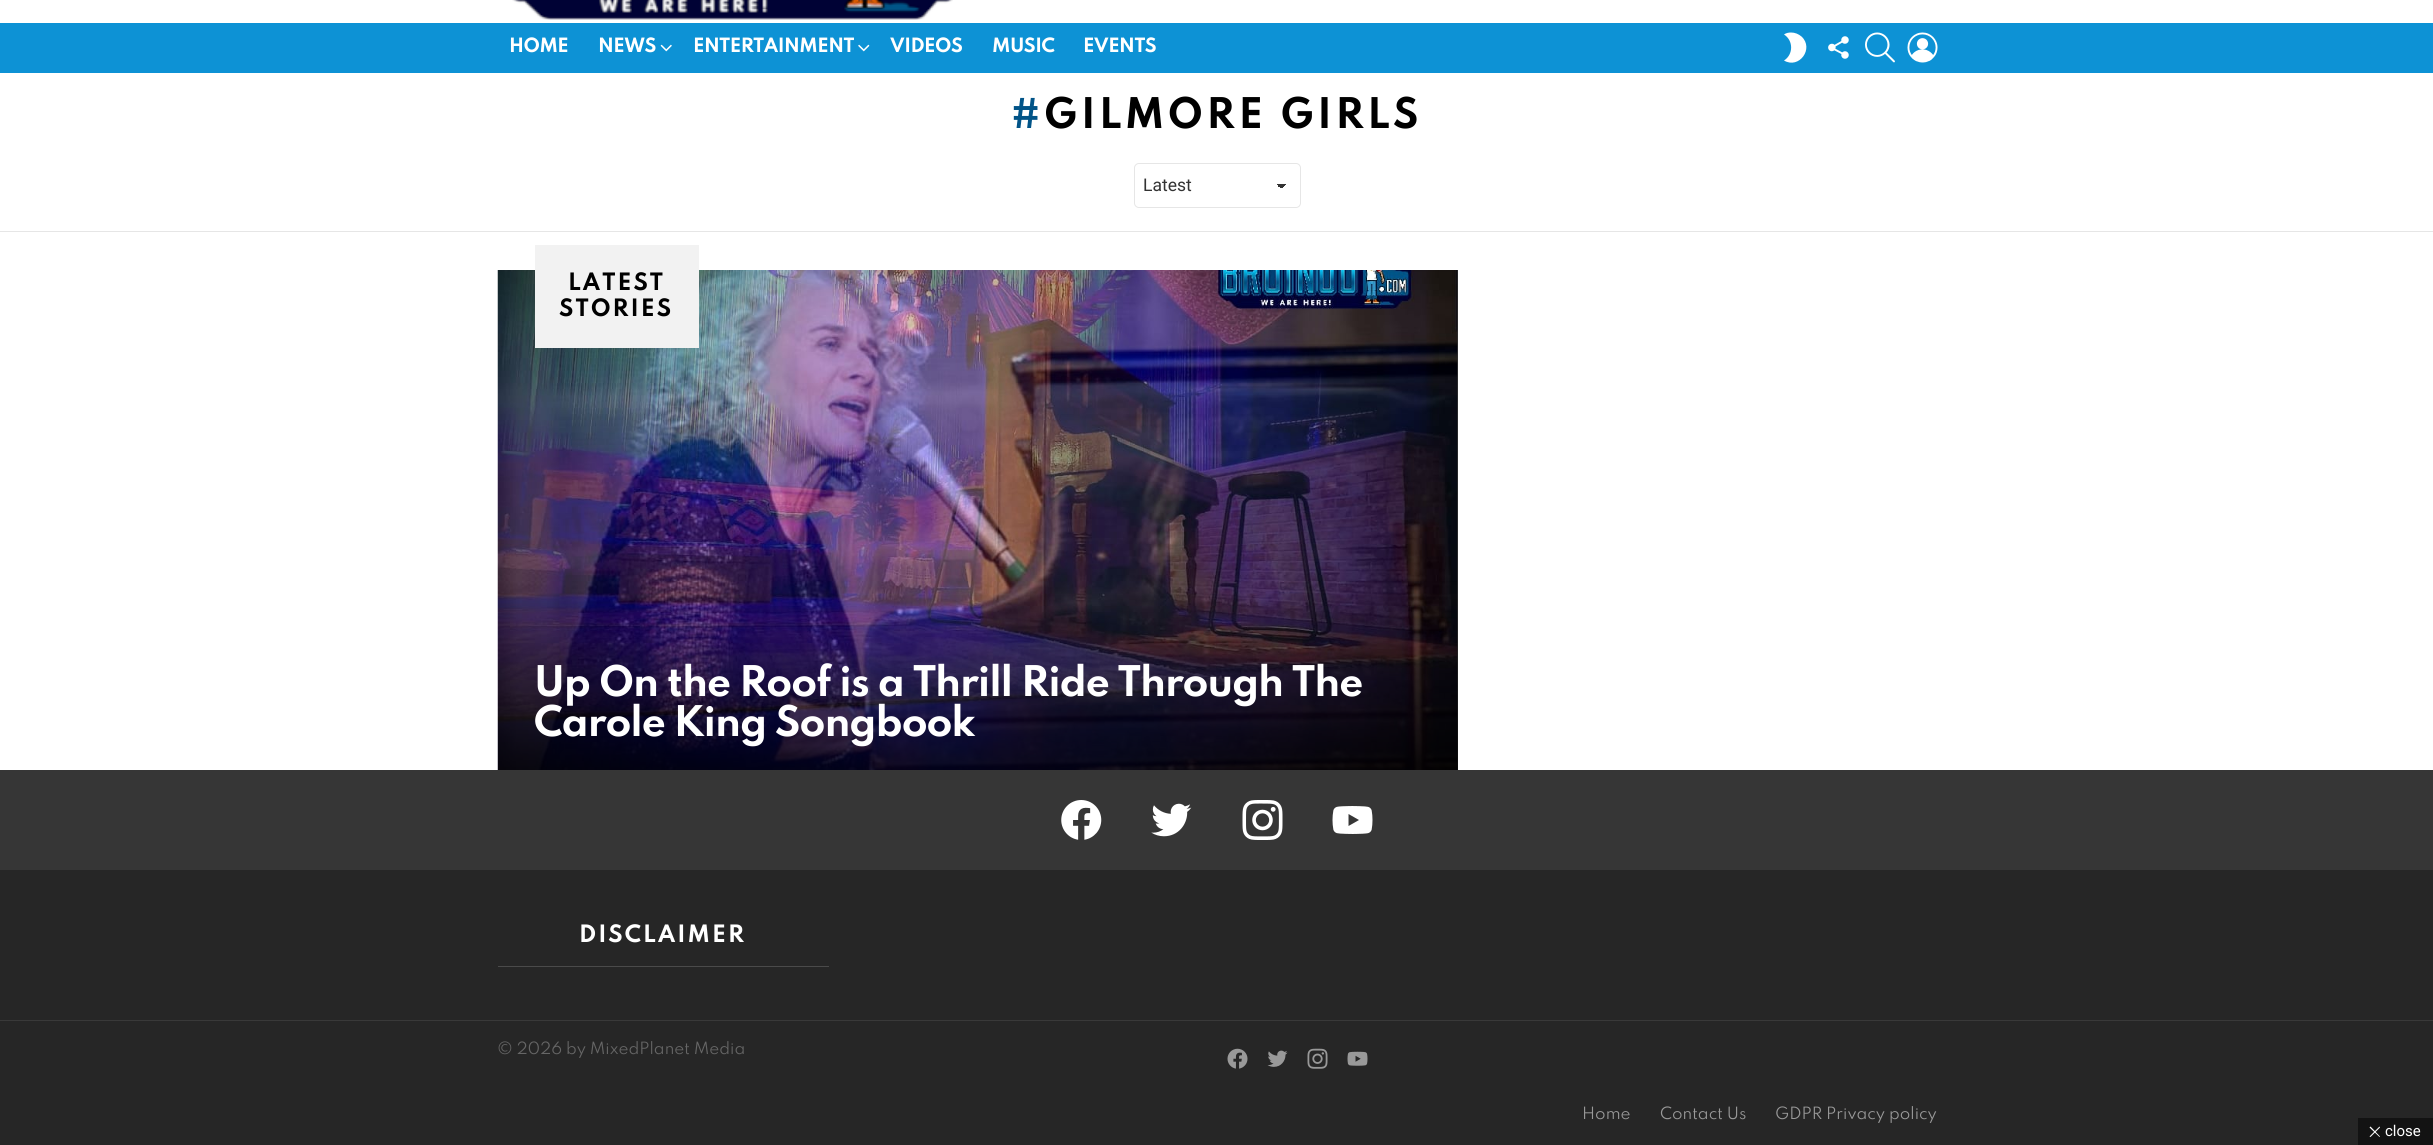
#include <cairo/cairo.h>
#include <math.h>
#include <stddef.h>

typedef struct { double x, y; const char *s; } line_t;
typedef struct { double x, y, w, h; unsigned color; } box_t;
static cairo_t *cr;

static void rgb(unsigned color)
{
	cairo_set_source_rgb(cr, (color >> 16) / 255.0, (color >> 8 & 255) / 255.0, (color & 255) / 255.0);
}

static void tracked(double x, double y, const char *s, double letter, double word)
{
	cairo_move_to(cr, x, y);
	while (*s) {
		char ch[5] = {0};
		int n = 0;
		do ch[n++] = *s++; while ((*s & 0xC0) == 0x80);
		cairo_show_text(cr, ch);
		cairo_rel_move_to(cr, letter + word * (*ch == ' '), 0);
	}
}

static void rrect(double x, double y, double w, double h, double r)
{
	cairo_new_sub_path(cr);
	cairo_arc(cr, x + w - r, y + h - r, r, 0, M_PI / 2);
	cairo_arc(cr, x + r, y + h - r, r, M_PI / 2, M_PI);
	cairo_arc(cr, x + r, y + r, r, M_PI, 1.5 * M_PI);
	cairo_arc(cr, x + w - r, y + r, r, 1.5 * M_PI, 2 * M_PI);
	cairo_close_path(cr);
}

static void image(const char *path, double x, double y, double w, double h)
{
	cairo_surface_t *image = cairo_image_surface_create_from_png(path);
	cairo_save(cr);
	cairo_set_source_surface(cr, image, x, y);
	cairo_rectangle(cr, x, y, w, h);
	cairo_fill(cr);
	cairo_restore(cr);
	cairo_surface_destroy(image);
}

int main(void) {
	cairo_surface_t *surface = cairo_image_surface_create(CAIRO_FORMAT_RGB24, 2433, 1145);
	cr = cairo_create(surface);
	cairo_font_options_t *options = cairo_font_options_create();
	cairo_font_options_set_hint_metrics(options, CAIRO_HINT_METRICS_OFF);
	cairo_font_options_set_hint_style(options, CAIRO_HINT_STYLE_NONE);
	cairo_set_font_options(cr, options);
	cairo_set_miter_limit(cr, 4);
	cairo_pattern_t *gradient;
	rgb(0xffffff);
	cairo_paint(cr);
	image("img/1.png", 512, 0, 441, 20);
	rgb(0x0d92d5);
	cairo_rectangle(cr, 0, 23, 2433, 50);
	cairo_fill(cr);
	image("img/2.png", 660, 44, 12, 8);
	image("img/3.png", 858, 44, 12, 8);
	rgb(0xffffff);
	cairo_new_path(cr);
	cairo_move_to(cr, 1791, 32.5);
	cairo_curve_to(cr, 1788.5, 32.5, 1786, 33, 1784, 34.5);
	cairo_curve_to(cr, 1793.5, 40.5, 1793.5, 54.5, 1784, 60.5);
	cairo_curve_to(cr, 1799, 69.5, 1814.5, 48.5, 1801.5, 36.5);
	cairo_curve_to(cr, 1798.5, 34, 1795, 32.5, 1791, 32.5);
	cairo_close_path(cr);
	cairo_fill(cr);
	image("img/4.png", 1828, 36, 21, 23);
	image("img/5.png", 1865, 32, 30, 31);
	image("img/6.png", 1907, 32, 31, 31);
	gradient = cairo_pattern_create_linear(1282, 183, 1287, 189);
	cairo_pattern_add_color_stop_rgba(gradient, 0.5, 0.2, 0.2, 0.2, 1);
	cairo_pattern_add_color_stop_rgba(gradient, 0.5, 1, 1, 1, 1);
	cairo_set_source(cr, gradient);
	cairo_pattern_destroy(gradient);
	cairo_rectangle(cr, 1281, 184, 7, 4);
	cairo_fill(cr);
	gradient = cairo_pattern_create_linear(1275, 189, 1281, 183);
	cairo_pattern_add_color_stop_rgba(gradient, 0.5, 1, 1, 1, 1);
	cairo_pattern_add_color_stop_rgba(gradient, 0.5, 0.2, 0.2, 0.2, 1);
	cairo_set_source(cr, gradient);
	cairo_pattern_destroy(gradient);
	cairo_rectangle(cr, 1275, 184, 6, 4);
	cairo_fill(cr);
	rrect(1134.5, 163.5, 166, 44, 4.5);
	rgb(0xe6e6e6);
	cairo_set_line_width(cr, 1);
	cairo_stroke(cr);
	cairo_rectangle(cr, 0, 231, 2433, 1);
	cairo_fill(cr);
	rgb(0x333333);
	cairo_rectangle(cr, 1457, 270, 1, 500);
	cairo_fill(cr);
	image("img/7.png", 497, 270, 961, 500);
	rgb(0xf2f2f2);
	cairo_rectangle(cr, 535, 245, 164, 103);
	cairo_fill(cr);
	gradient = cairo_pattern_create_linear(978, 590, 978, 770);
	cairo_pattern_add_color_stop_rgba(gradient, 0, 0, 0, 0, 0);
	cairo_pattern_add_color_stop_rgba(gradient, 1, 0, 0, 0, 0.75);
	cairo_set_source(cr, gradient);
	cairo_pattern_destroy(gradient);
	cairo_rectangle(cr, 498, 595, 960, 175);
	cairo_fill(cr);
	rgb(0x363636);
	cairo_rectangle(cr, 0, 770, 2433, 100);
	cairo_fill(cr);
	image("img/8.png", 1061, 800, 41, 40);
	image("img/9.png", 1151, 803, 41, 34);
	image("img/10.png", 1242, 800, 41, 40);
	image("img/11.png", 1332, 806, 41, 28);
	{
		static const box_t items[] = {
			{0, 870, 2433, 150, 0x262626},
			{498, 966, 331, 1, 0x4a4a4a},
			{0, 1020, 2433, 1, 0x393939},
			{0, 1021, 2433, 124, 0x262626},
		};
		for (size_t i = 0; i < sizeof items / sizeof *items; i++) {
			rgb(items[i].color);
			cairo_rectangle(cr, items[i].x, items[i].y, items[i].w, items[i].h);
			cairo_fill(cr);
		}
	}
	image("img/12.png", 1227, 1048, 21, 21);
	image("img/13.png", 1267, 1050, 21, 17);
	image("img/14.png", 1307, 1048, 21, 21);
	image("img/15.png", 1347, 1051, 21, 15);
	rgb(0x131313);
	cairo_rectangle(cr, 2358, 1118, 75, 27);
	cairo_fill(cr);
	rgb(0xffffff);
	cairo_new_path(cr);
	cairo_move_to(cr, 2370.5, 1126.5);
	cairo_line_to(cr, 2380, 1136.5);
	cairo_line_to(cr, 2379.5, 1137);
	cairo_line_to(cr, 2369.5, 1127.5);
	cairo_close_path(cr);
	cairo_fill(cr);
	cairo_new_path(cr);
	cairo_move_to(cr, 2379.5, 1126.5);
	cairo_line_to(cr, 2380, 1127.5);
	cairo_line_to(cr, 2370.5, 1137);
	cairo_line_to(cr, 2369.5, 1136.5);
	cairo_close_path(cr);
	cairo_fill(cr);
	cairo_select_font_face(cr, "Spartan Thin", CAIRO_FONT_SLANT_NORMAL, CAIRO_FONT_WEIGHT_BOLD);
	cairo_set_font_size(cr, 17.5);
	{
		static const line_t items[] = {
			{509, 52, "HOME"},
			{598, 52, "NEWS"},
			{693, 52, "ENTERTAINMENT"},
			{890, 52, "VIDEOS"},
			{992, 52, "MUSIC"},
			{1083, 52, "EVENTS"},
		};
		for (size_t i = 0; i < sizeof items / sizeof *items; i++) {
			tracked(items[i].x, items[i].y, items[i].s, -0.5, 0);
		}
	}
	cairo_set_font_size(cr, 37.5);
	rgb(0x015488);
	tracked(1011, 128, "#", 3.6, 0);
	rgb(0x000000);
	tracked(1044, 128, "GILMORE GIRLS", 3.6, 0);
	cairo_select_font_face(cr, "Roboto", CAIRO_FONT_SLANT_NORMAL, CAIRO_FONT_WEIGHT_NORMAL);
	cairo_set_font_size(cr, 17.5);
	rgb(0x333333);
	cairo_move_to(cr, 1143, 191);
	cairo_show_text(cr, "Latest");
	cairo_select_font_face(cr, "Spartan Thin", CAIRO_FONT_SLANT_NORMAL, CAIRO_FONT_WEIGHT_BOLD);
	cairo_set_font_size(cr, 21.25);
	rgb(0x000000);
	tracked(568, 290, "LATEST", 2, 0);
	tracked(559, 316, "STORIES", 2, 0);
	cairo_set_font_size(cr, 37.5);
	rgb(0xffffff);
	tracked(534, 696, "Up On the Roof is a Thrill Ride Through The", -1.1, 0);
	tracked(534, 736, "Carole King Songbook", -1.1, 0);
	cairo_set_font_size(cr, 21.25);
	tracked(579, 942, "DISCLAIMER", 2, 0);
	cairo_select_font_face(cr, "Spartan Thin", CAIRO_FONT_SLANT_NORMAL, CAIRO_FONT_WEIGHT_NORMAL);
	cairo_set_font_size(cr, 15);
	rgb(0x666666);
	cairo_move_to(cr, 497, 1054);
	cairo_show_text(cr, "© 2026 by MixedPlanet Media");
	rgb(0x999999);
	{
		static const line_t items[] = {
			{1582, 1119, "Home"},
			{1660, 1119, "Contact Us"},
			{1775, 1119, "GDPR Privacy policy"},
		};
		for (size_t i = 0; i < sizeof items / sizeof *items; i++) {
			cairo_move_to(cr, items[i].x, items[i].y);
			cairo_show_text(cr, items[i].s);
		}
	}
	cairo_select_font_face(cr, "Roboto", CAIRO_FONT_SLANT_NORMAL, CAIRO_FONT_WEIGHT_NORMAL);
	rgb(0xffffff);
	cairo_move_to(cr, 2385, 1136);
	cairo_show_text(cr, "close");
	cairo_surface_write_to_png(surface, "page.png");
	cairo_font_options_destroy(options);
	cairo_destroy(cr);
	cairo_surface_destroy(surface);
	return 0;
}
